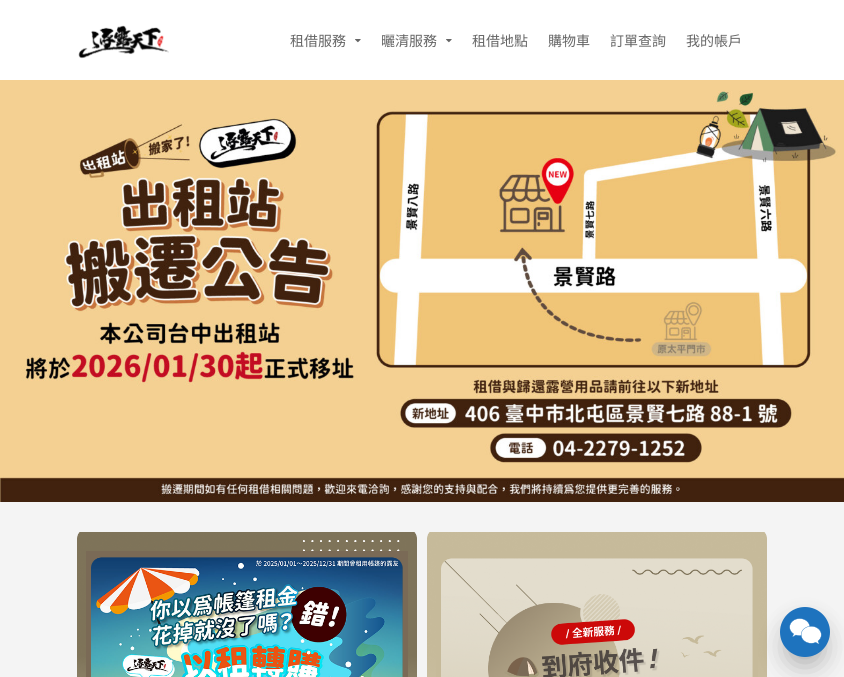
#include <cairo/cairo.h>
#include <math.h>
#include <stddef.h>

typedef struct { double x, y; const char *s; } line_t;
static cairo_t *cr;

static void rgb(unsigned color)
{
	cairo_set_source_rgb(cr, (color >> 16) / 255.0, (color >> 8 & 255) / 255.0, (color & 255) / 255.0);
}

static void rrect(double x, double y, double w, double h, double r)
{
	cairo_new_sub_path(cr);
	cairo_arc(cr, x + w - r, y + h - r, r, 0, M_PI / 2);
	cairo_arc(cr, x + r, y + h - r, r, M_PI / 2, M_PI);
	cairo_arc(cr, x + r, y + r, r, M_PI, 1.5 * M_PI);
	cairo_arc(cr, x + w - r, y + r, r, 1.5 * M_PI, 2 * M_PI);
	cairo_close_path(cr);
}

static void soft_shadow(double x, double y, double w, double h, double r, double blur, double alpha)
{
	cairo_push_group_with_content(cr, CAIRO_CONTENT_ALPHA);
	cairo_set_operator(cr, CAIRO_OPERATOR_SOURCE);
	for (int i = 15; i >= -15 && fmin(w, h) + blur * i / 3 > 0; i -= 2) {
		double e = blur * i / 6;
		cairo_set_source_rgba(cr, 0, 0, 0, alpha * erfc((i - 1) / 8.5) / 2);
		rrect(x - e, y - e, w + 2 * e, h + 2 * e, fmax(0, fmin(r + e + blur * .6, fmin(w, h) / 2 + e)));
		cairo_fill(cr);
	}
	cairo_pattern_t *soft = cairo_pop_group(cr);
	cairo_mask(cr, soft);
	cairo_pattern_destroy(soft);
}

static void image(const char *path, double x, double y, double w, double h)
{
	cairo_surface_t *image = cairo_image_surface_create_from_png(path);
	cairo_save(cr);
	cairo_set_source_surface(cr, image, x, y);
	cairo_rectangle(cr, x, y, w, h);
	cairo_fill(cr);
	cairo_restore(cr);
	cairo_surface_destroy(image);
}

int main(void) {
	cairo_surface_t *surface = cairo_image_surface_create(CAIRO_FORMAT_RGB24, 844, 677);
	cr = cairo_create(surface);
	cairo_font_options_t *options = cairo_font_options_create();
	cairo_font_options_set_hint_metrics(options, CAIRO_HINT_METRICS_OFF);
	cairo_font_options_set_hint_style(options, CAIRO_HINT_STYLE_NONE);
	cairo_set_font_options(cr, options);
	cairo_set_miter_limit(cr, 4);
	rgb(0xf4f4f4);
	cairo_paint(cr);
	rgb(0xffffff);
	cairo_rectangle(cr, 0, 0, 844, 80);
	cairo_fill(cr);
	image("img/1.png", 78, 25, 91, 34);
	image("img/2.png", 355, 39, 6, 4);
	image("img/2.png", 446, 39, 6, 4);
	image("img/3.png", 0, 80, 844, 422);
	image("img/4.png", 77, 532, 340, 145);
	image("img/5.png", 427, 532, 340, 145);
	rgb(0x000000);
	soft_shadow(790, 632, 30, 30, 15, 15, 0.3);
	soft_shadow(780, 612, 50, 50, 25, 10, 0.05);
	rgb(0x1e73be);
	cairo_arc(cr, 805, 632, 25, 0, 2 * M_PI);
	cairo_fill(cr);
	image("img/6.png", 789, 618, 33, 26);
	cairo_select_font_face(cr, "Noto Sans TC", CAIRO_FONT_SLANT_NORMAL, CAIRO_FONT_WEIGHT_NORMAL);
	cairo_set_font_size(cr, 14);
	rgb(0x666666);
	{
		static const line_t items[] = {
			{290, 46, "租借服務"},
			{381, 46, "曬清服務"},
			{472, 46, "租借地點"},
			{548, 46, "購物車"},
			{610, 46, "訂單查詢"},
			{686, 46, "我的帳戶"},
		};
		for (size_t i = 0; i < sizeof items / sizeof *items; i++) {
			cairo_move_to(cr, items[i].x, items[i].y);
			cairo_show_text(cr, items[i].s);
		}
	}
	cairo_surface_write_to_png(surface, "page.png");
	cairo_font_options_destroy(options);
	cairo_destroy(cr);
	cairo_surface_destroy(surface);
	return 0;
}
